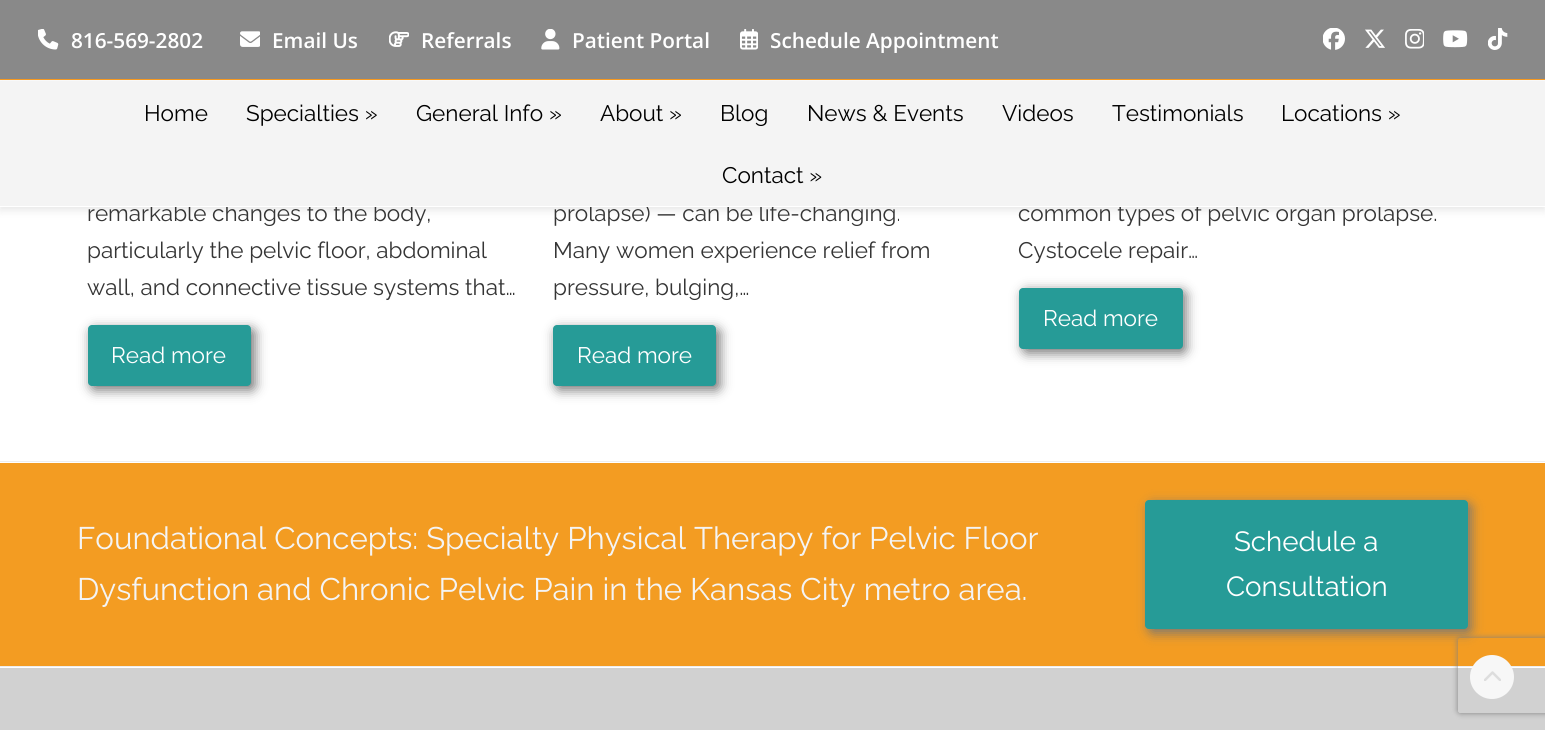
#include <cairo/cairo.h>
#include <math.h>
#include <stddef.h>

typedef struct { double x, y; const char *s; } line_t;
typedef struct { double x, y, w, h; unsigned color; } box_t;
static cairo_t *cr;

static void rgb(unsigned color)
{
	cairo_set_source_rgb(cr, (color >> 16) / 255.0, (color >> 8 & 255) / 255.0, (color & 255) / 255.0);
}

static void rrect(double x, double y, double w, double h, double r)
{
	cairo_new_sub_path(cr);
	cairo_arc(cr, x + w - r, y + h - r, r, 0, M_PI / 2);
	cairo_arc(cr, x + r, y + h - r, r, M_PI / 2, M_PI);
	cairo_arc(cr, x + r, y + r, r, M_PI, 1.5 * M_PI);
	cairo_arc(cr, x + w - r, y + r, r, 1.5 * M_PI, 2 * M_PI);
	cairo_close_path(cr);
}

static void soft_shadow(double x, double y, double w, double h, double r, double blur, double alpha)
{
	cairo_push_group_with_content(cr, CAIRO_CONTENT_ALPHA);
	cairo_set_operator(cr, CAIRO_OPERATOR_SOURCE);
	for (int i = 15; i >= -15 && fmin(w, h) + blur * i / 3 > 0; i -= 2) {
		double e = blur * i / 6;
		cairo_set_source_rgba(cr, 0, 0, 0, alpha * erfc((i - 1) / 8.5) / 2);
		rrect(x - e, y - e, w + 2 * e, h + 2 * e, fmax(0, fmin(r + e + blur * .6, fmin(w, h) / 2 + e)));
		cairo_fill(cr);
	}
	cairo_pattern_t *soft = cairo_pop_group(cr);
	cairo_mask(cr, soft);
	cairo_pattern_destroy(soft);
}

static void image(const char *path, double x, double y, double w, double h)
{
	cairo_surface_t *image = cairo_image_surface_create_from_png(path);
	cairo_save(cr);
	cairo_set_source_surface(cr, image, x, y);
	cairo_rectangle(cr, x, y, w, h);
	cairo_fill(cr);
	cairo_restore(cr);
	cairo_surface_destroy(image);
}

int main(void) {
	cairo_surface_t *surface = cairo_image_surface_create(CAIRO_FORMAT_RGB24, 1545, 730);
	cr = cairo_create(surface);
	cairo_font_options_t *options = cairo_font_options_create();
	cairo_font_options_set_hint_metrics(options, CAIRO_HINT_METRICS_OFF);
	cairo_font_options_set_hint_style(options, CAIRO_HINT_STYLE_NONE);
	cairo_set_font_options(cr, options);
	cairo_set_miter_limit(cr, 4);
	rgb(0xffffff);
	cairo_paint(cr);
	rgb(0x000000);
	soft_shadow(0, 83, 1545, 127, 0, 4.5, 0.1);
	rgb(0x898989);
	cairo_rectangle(cr, 0, 0, 1545, 79);
	cairo_fill(cr);
	rgb(0xf7991f);
	cairo_rectangle(cr, 0, 79, 1545, 1);
	cairo_fill(cr);
	image("img/1.png", 38, 29, 21, 21);
	image("img/2.png", 240, 31, 20, 16);
	image("img/3.png", 389, 31, 20, 16);
	image("img/4.png", 541, 29, 19, 21);
	image("img/5.png", 740, 29, 18, 21);
	image("img/6.png", 1323, 28, 22, 22);
	image("img/7.png", 1365, 29, 20, 19);
	image("img/8.png", 1405, 29, 19, 20);
	image("img/9.png", 1443, 30, 25, 18);
	image("img/10.png", 1488, 28, 20, 22);
	rgb(0x757575);
	soft_shadow(91, 329, 164, 61, 4, 6, 1);
	rgb(0x269b97);
	rrect(88, 325, 163, 61, 4);
	cairo_fill(cr);
	rgb(0x757575);
	soft_shadow(556, 329, 164, 61, 4, 6, 1);
	rgb(0x269b97);
	rrect(553, 325, 163, 61, 4);
	cairo_fill(cr);
	rgb(0x757575);
	soft_shadow(1023, 291, 163, 62, 4, 6, 1);
	rgb(0x269b97);
	rrect(1019, 288, 164, 61, 4);
	cairo_fill(cr);
	{
		static const box_t items[] = {
			{0, 463, 1545, 203, 0xf39c22},
			{0, 461, 1545, 1, 0xeeeeee},
			{0, 666, 1545, 1, 0xeeeeee},
		};
		for (size_t i = 0; i < sizeof items / sizeof *items; i++) {
			rgb(items[i].color);
			cairo_rectangle(cr, items[i].x, items[i].y, items[i].w, items[i].h);
			cairo_fill(cr);
		}
	}
	rgb(0x757575);
	soft_shadow(1149, 504, 322, 129, 4, 6, 1);
	rgb(0x269b97);
	rrect(1145, 500, 323, 129, 4);
	cairo_fill(cr);
	rgb(0xd1d1d1);
	cairo_rectangle(cr, 0, 668, 1545, 62);
	cairo_fill(cr);
	cairo_save(cr);
	cairo_set_fill_rule(cr, CAIRO_FILL_RULE_EVEN_ODD);
	cairo_new_path(cr);
	cairo_move_to(cr, 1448, 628);
	cairo_line_to(cr, 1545, 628);
	cairo_line_to(cr, 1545, 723);
	cairo_line_to(cr, 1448, 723);
	cairo_close_path(cr);
	cairo_move_to(cr, 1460.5, 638);
	cairo_line_to(cr, 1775.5, 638);
	cairo_curve_to(cr, 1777, 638, 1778, 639, 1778, 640.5);
	cairo_line_to(cr, 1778, 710.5);
	cairo_curve_to(cr, 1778, 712, 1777, 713, 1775.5, 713);
	cairo_line_to(cr, 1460.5, 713);
	cairo_curve_to(cr, 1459, 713, 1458, 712, 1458, 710.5);
	cairo_line_to(cr, 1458, 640.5);
	cairo_curve_to(cr, 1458, 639, 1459, 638, 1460.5, 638);
	cairo_close_path(cr);
	cairo_clip(cr);
	rgb(0x808080);
	soft_shadow(1458, 638, 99, 75, 2.5, 3, 1);
	cairo_restore(cr);
	rgb(0xf7f7f7);
	cairo_arc(cr, 1492, 677, 22, 0, 2 * M_PI);
	cairo_fill(cr);
	image("img/11.png", 1484, 671, 17, 10);
	cairo_select_font_face(cr, "Open Sans SemiBold", CAIRO_FONT_SLANT_NORMAL, CAIRO_FONT_WEIGHT_NORMAL);
	cairo_set_font_size(cr, 20.75);
	rgb(0xffffff);
	{
		static const line_t items[] = {
			{71, 48, "816-569-2802"},
			{272, 48, "Email Us"},
			{421, 48, "Referrals"},
			{572, 48, "Patient Portal"},
			{770, 48, "Schedule Appointment"},
		};
		for (size_t i = 0; i < sizeof items / sizeof *items; i++) {
			cairo_move_to(cr, items[i].x, items[i].y);
			cairo_show_text(cr, items[i].s);
		}
	}
	cairo_select_font_face(cr, "Raleway", CAIRO_FONT_SLANT_NORMAL, CAIRO_FONT_WEIGHT_NORMAL);
	cairo_set_font_size(cr, 22.5);
	rgb(0x353535);
	{
		static const line_t items[] = {
			{87, 221, "remarkable changes to the body,"},
			{87, 258, "particularly the pelvic floor, abdominal"},
			{87, 295, "wall, and connective tissue systems that…"},
		};
		for (size_t i = 0; i < sizeof items / sizeof *items; i++) {
			cairo_move_to(cr, items[i].x, items[i].y);
			cairo_show_text(cr, items[i].s);
		}
	}
	rgb(0xffffff);
	cairo_move_to(cr, 111, 363);
	cairo_show_text(cr, "Read more");
	rgb(0x353535);
	{
		static const line_t items[] = {
			{553, 221, "prolapse) — can be life-changing."},
			{553, 258, "Many women experience relief from"},
			{553, 295, "pressure, bulging,…"},
		};
		for (size_t i = 0; i < sizeof items / sizeof *items; i++) {
			cairo_move_to(cr, items[i].x, items[i].y);
			cairo_show_text(cr, items[i].s);
		}
	}
	rgb(0xffffff);
	cairo_move_to(cr, 577, 363);
	cairo_show_text(cr, "Read more");
	rgb(0x353535);
	cairo_move_to(cr, 1018, 221);
	cairo_show_text(cr, "common types of pelvic organ prolapse.");
	rgb(0xf4f4f4);
	cairo_rectangle(cr, 0, 81, 1545, 125);
	cairo_fill(cr);
	rgb(0x000000);
	{
		static const line_t items[] = {
			{722, 183, "Contact »"},
			{1281, 121, "Locations »"},
			{1112, 121, "Testimonials"},
			{1002, 121, "Videos"},
			{807, 121, "News & Events"},
			{720, 121, "Blog"},
			{600, 121, "About »"},
			{416, 121, "General Info »"},
			{246, 121, "Specialties »"},
			{144, 121, "Home"},
		};
		for (size_t i = 0; i < sizeof items / sizeof *items; i++) {
			cairo_move_to(cr, items[i].x, items[i].y);
			cairo_show_text(cr, items[i].s);
		}
	}
	rgb(0xffffff);
	cairo_rectangle(cr, 0, 206, 1545, 1);
	cairo_fill(cr);
	rgb(0x353535);
	cairo_move_to(cr, 1018, 258);
	cairo_show_text(cr, "Cystocele repair…");
	rgb(0xffffff);
	cairo_move_to(cr, 1043, 326);
	cairo_show_text(cr, "Read more");
	cairo_set_font_size(cr, 31.15);
	rgb(0xf4f4f4);
	cairo_move_to(cr, 77, 549);
	cairo_show_text(cr, "Foundational Concepts: Specialty Physical Therapy for Pelvic Floor");
	cairo_move_to(cr, 77, 600);
	cairo_show_text(cr, "Dysfunction and Chronic Pelvic Pain in the Kansas City metro area.");
	cairo_set_font_size(cr, 27.75);
	rgb(0xffffff);
	cairo_move_to(cr, 1234, 551);
	cairo_show_text(cr, "Schedule a");
	cairo_move_to(cr, 1226, 596);
	cairo_show_text(cr, "Consultation");
	cairo_surface_write_to_png(surface, "page.png");
	cairo_font_options_destroy(options);
	cairo_destroy(cr);
	cairo_surface_destroy(surface);
	return 0;
}
